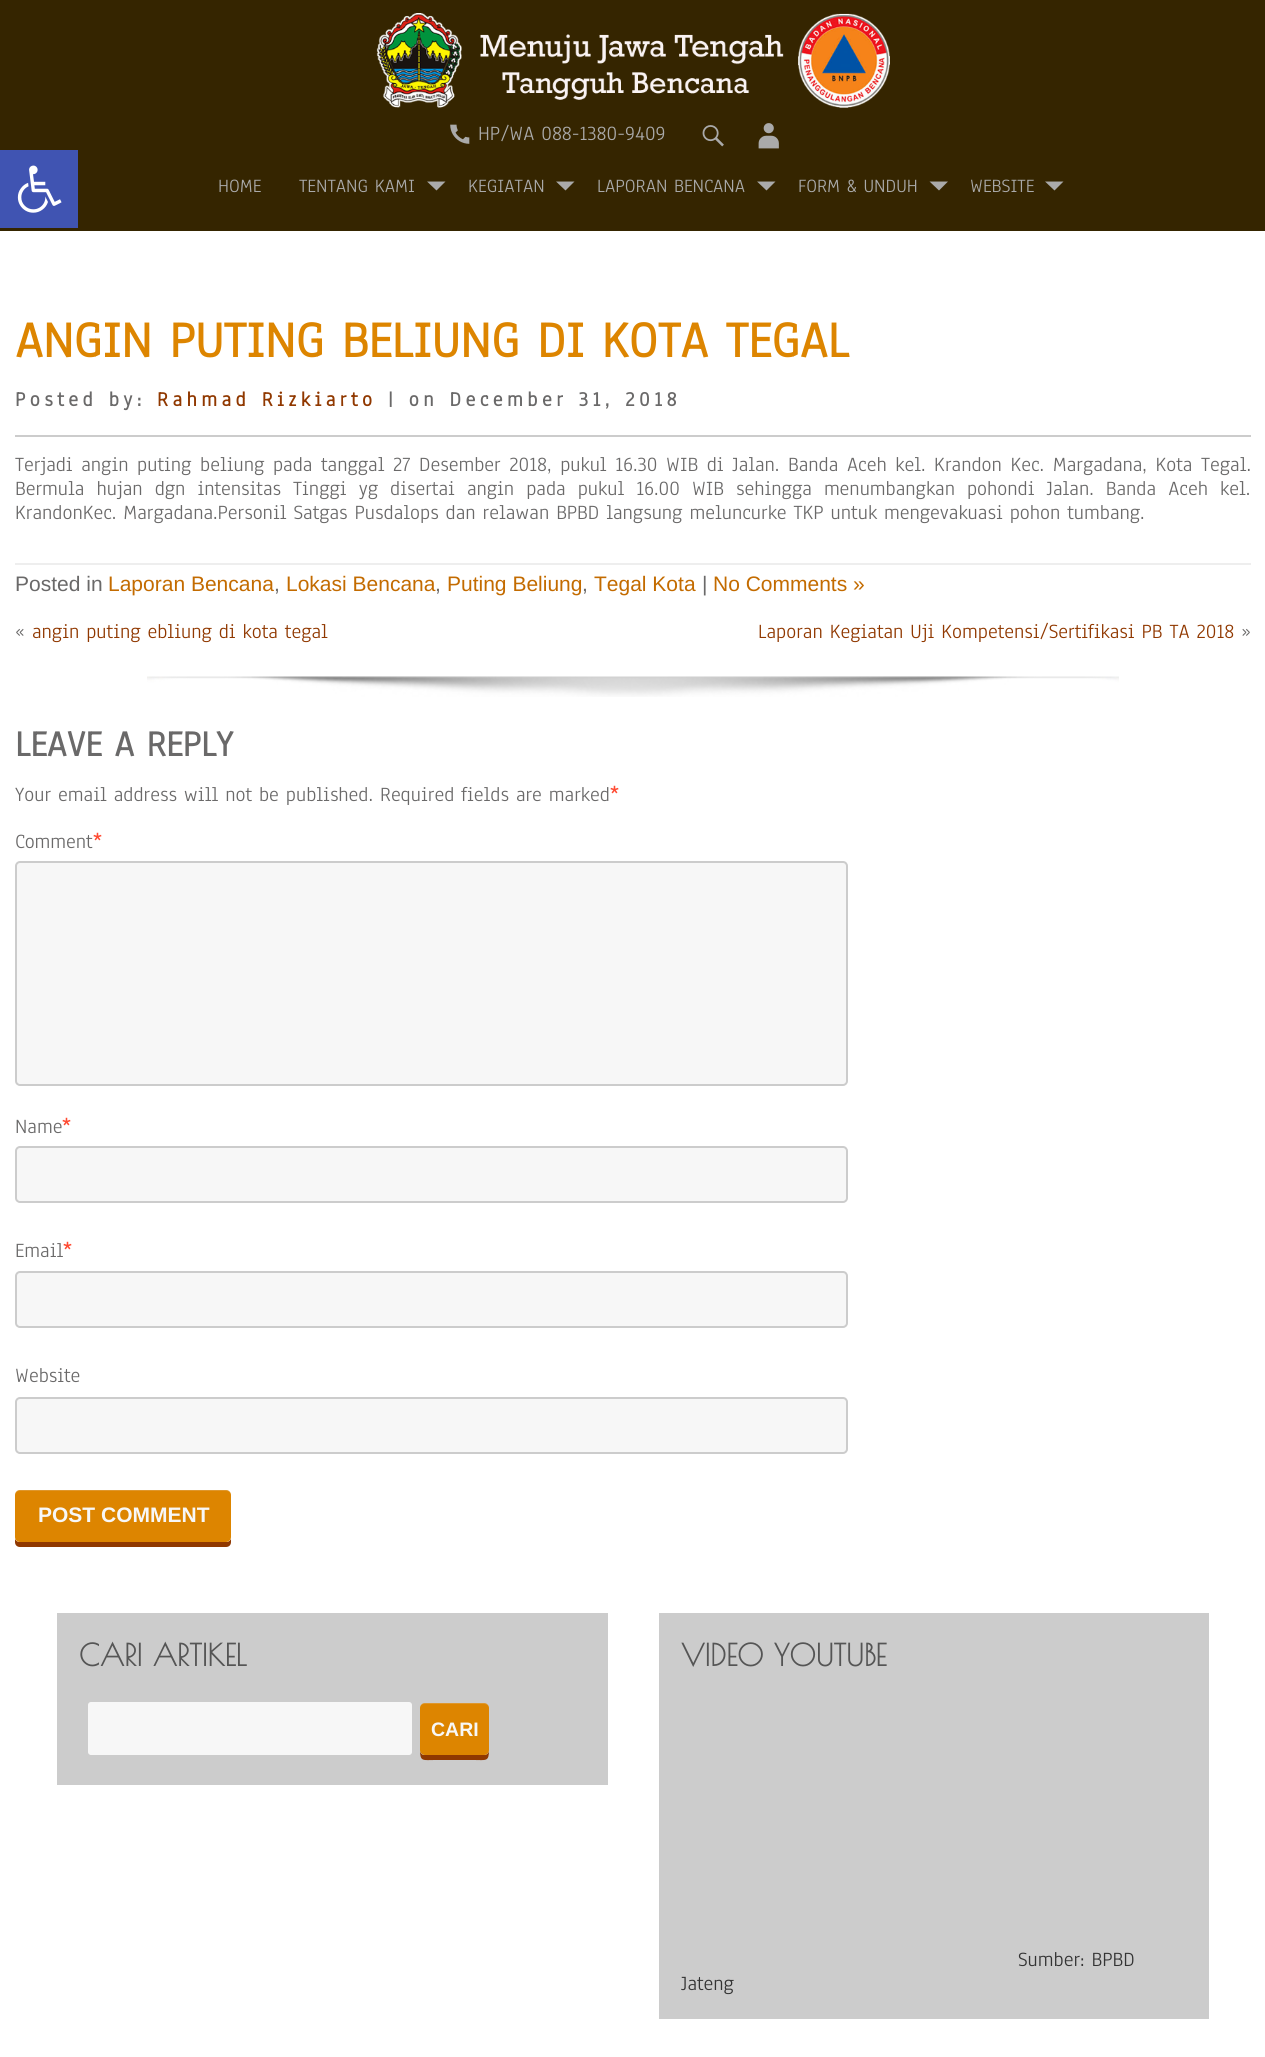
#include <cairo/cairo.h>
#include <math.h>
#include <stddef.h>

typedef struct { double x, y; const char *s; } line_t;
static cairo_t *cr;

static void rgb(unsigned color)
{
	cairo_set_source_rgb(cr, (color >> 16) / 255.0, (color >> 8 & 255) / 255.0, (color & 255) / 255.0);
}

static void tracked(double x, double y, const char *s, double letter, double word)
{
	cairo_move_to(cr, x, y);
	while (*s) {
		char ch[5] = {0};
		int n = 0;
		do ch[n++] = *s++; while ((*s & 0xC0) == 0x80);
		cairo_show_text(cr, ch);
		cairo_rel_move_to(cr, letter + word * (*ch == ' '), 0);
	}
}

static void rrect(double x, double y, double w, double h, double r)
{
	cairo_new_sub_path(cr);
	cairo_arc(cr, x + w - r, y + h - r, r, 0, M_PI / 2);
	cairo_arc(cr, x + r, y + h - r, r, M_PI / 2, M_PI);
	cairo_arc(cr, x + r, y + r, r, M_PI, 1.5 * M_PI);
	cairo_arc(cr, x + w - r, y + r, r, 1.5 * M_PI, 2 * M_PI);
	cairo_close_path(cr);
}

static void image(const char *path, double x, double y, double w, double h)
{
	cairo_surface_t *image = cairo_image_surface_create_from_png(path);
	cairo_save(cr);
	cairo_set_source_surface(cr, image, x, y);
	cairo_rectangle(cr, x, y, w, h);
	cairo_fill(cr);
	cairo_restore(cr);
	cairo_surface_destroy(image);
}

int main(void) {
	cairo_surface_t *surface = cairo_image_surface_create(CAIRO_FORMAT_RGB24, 1265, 2057);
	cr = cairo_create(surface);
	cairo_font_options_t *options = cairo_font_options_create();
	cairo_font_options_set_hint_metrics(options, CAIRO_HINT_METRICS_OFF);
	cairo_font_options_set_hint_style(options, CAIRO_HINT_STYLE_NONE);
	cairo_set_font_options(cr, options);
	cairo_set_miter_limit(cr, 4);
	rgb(0xffffff);
	cairo_paint(cr);
	rgb(0x352500);
	cairo_rectangle(cr, 0, 0, 1265, 231);
	cairo_fill(cr);
	rgb(0x4054b2);
	cairo_rectangle(cr, 0, 150, 78, 78);
	cairo_fill(cr);
	image("img/1.png", 17, 165, 45, 48);
	image("img/2.png", 376, 13, 514, 95);
	image("img/3.png", 450, 124, 20, 20);
	image("img/4.png", 702, 125, 22, 22);
	image("img/5.png", 758, 123, 21, 26);
	rgb(0xaaaaaa);
	cairo_new_path(cr);
	cairo_move_to(cr, 427, 181.5);
	cairo_line_to(cr, 445.5, 181.5);
	cairo_line_to(cr, 436.5, 190.5);
	cairo_close_path(cr);
	cairo_fill(cr);
	cairo_new_path(cr);
	cairo_move_to(cr, 556, 181.5);
	cairo_line_to(cr, 574.5, 181.5);
	cairo_line_to(cr, 565.5, 190.5);
	cairo_close_path(cr);
	cairo_fill(cr);
	cairo_new_path(cr);
	cairo_move_to(cr, 757, 181.5);
	cairo_line_to(cr, 775.5, 181.5);
	cairo_line_to(cr, 766.5, 190.5);
	cairo_close_path(cr);
	cairo_fill(cr);
	cairo_new_path(cr);
	cairo_move_to(cr, 929.5, 181.5);
	cairo_line_to(cr, 948, 181.5);
	cairo_line_to(cr, 939, 190.5);
	cairo_close_path(cr);
	cairo_fill(cr);
	cairo_new_path(cr);
	cairo_move_to(cr, 1045, 181.5);
	cairo_line_to(cr, 1063.5, 181.5);
	cairo_line_to(cr, 1054.5, 190.5);
	cairo_close_path(cr);
	cairo_fill(cr);
	rgb(0xcccccc);
	cairo_rectangle(cr, 15, 435, 1236, 2);
	cairo_fill(cr);
	image("img/6.png", 147, 676, 972, 21);
	rgb(0xeeeeee);
	cairo_rectangle(cr, 15, 563, 1236, 2);
	cairo_fill(cr);
	rgb(0xf7f7f7);
	rrect(16, 862, 831, 223, 4);
	cairo_fill_preserve(cr);
	rgb(0xcccccc);
	cairo_stroke(cr);
	rgb(0xf7f7f7);
	rrect(16, 1147, 831, 55, 4);
	cairo_fill_preserve(cr);
	rgb(0xcccccc);
	cairo_stroke(cr);
	rgb(0xf7f7f7);
	rrect(16, 1272, 831, 55, 4);
	cairo_fill_preserve(cr);
	rgb(0xcccccc);
	cairo_stroke(cr);
	rgb(0xf7f7f7);
	rrect(16, 1398, 831, 55, 4);
	cairo_fill_preserve(cr);
	rgb(0xcccccc);
	cairo_stroke(cr);
	rgb(0x903800);
	cairo_new_path(cr);
	cairo_move_to(cr, 15, 1538);
	cairo_line_to(cr, 15, 1542);
	cairo_curve_to(cr, 15, 1545, 17, 1547, 20, 1547);
	cairo_line_to(cr, 226, 1547);
	cairo_curve_to(cr, 229, 1547, 231, 1545, 231, 1542);
	cairo_line_to(cr, 231, 1538);
	cairo_curve_to(cr, 231, 1540, 229, 1542, 226, 1542);
	cairo_line_to(cr, 20, 1542);
	cairo_curve_to(cr, 17, 1542, 15, 1540, 15, 1538);
	cairo_close_path(cr);
	cairo_fill(cr);
	rgb(0xdd8500);
	rrect(15, 1490, 216, 52, 5);
	cairo_fill(cr);
	cairo_set_source_rgba(cr, 0.882, 0.882, 0.882, 0.2);
	cairo_new_path(cr);
	cairo_move_to(cr, 20, 1491);
	cairo_line_to(cr, 226, 1491);
	cairo_curve_to(cr, 229, 1491, 231, 1493, 231, 1496);
	cairo_curve_to(cr, 231, 1493, 229, 1490, 226, 1490);
	cairo_line_to(cr, 19, 1490);
	cairo_curve_to(cr, 16, 1491, 15, 1493, 15, 1496);
	cairo_curve_to(cr, 15, 1493, 17, 1491, 20, 1491);
	cairo_close_path(cr);
	cairo_fill(cr);
	rgb(0xcccccc);
	cairo_rectangle(cr, 57, 1613, 551, 172);
	cairo_fill(cr);
	rgb(0xf7f7f7);
	rrect(87, 1701, 326, 55, 4);
	cairo_fill_preserve(cr);
	rgb(0xcccccc);
	cairo_stroke(cr);
	rgb(0x903800);
	cairo_new_path(cr);
	cairo_move_to(cr, 420, 1750);
	cairo_curve_to(cr, 420, 1762, 423, 1760, 435, 1760);
	cairo_line_to(cr, 474, 1760);
	cairo_curve_to(cr, 486, 1760, 489, 1762, 489, 1750);
	cairo_curve_to(cr, 489, 1753, 487, 1755, 484, 1755);
	cairo_line_to(cr, 424, 1755);
	cairo_curve_to(cr, 422, 1755, 420, 1753, 420, 1750);
	cairo_close_path(cr);
	cairo_fill(cr);
	rgb(0xdd8500);
	rrect(420, 1703, 69, 52, 5);
	cairo_fill(cr);
	cairo_set_source_rgba(cr, 0.882, 0.882, 0.882, 0.2);
	cairo_new_path(cr);
	cairo_move_to(cr, 424, 1704);
	cairo_line_to(cr, 484, 1704);
	cairo_curve_to(cr, 487, 1704, 489, 1706, 489, 1708);
	cairo_curve_to(cr, 489, 1705, 487, 1703, 484, 1703);
	cairo_line_to(cr, 425, 1703);
	cairo_curve_to(cr, 422, 1703, 420, 1705, 420, 1708);
	cairo_curve_to(cr, 420, 1706, 422, 1704, 424, 1704);
	cairo_close_path(cr);
	cairo_fill(cr);
	rgb(0xcccccc);
	cairo_rectangle(cr, 659, 1613, 550, 406);
	cairo_fill(cr);
	cairo_select_font_face(cr, "Anaheim", CAIRO_FONT_SLANT_NORMAL, CAIRO_FONT_WEIGHT_NORMAL);
	cairo_set_font_size(cr, 21);
	rgb(0xaaaaaa);
	cairo_move_to(cr, 478, 140);
	cairo_show_text(cr, "HP/WA 088-1380-9409");
	cairo_set_font_size(cr, 19.5);
	{
		static const line_t items[] = {
			{218, 192, "HOME"},
			{299, 192, "TENTANG KAMI"},
			{468, 192, "KEGIATAN"},
			{597, 192, "LAPORAN BENCANA"},
			{798, 192, "FORM & UNDUH"},
			{970, 192, "WEBSITE"},
		};
		for (size_t i = 0; i < sizeof items / sizeof *items; i++) {
			cairo_move_to(cr, items[i].x, items[i].y);
			cairo_show_text(cr, items[i].s);
		}
	}
	cairo_select_font_face(cr, "Anaheim", CAIRO_FONT_SLANT_NORMAL, CAIRO_FONT_WEIGHT_BOLD);
	cairo_set_font_size(cr, 52.5);
	rgb(0xdd8500);
	cairo_move_to(cr, 15, 357);
	cairo_show_text(cr, "ANGIN PUTING BELIUNG DI KOTA TEGAL");
	cairo_set_font_size(cr, 21);
	rgb(0x6a6969);
	tracked(15, 406, "Posted by:", 4.5, 0);
	rgb(0x903800);
	tracked(157, 406, "Rahmad Rizkiarto", 4.5, 0);
	rgb(0x6a6969);
	tracked(388, 406, "| on December 31, 2018", 4.5, 0);
	cairo_select_font_face(cr, "Anaheim", CAIRO_FONT_SLANT_NORMAL, CAIRO_FONT_WEIGHT_NORMAL);
	tracked(15, 471, "Terjadi angin puting beliung pada tanggal 27 Desember 2018, pukul 16.30 WIB di Jalan. Banda Aceh kel. Krandon Kec. Margadana, Kota Tegal.", 0, 1.65);
	tracked(15, 495, "Bermula hujan dgn intensitas Tinggi yg disertai angin pada pukul 16.00 WIB sehingga menumbangkan pohondi Jalan. Banda Aceh kel.", 0, 5.1);
	cairo_move_to(cr, 15, 519);
	cairo_show_text(cr, "KrandonKec. Margadana.Personil Satgas Pusdalops dan relawan BPBD langsung meluncurke TKP untuk mengevakuasi pohon tumbang.");
	cairo_select_font_face(cr, "Liberation Sans", CAIRO_FONT_SLANT_NORMAL, CAIRO_FONT_WEIGHT_NORMAL);
	cairo_move_to(cr, 15, 591);
	cairo_show_text(cr, "Posted in");
	rgb(0xc36b00);
	cairo_move_to(cr, 108, 591);
	cairo_show_text(cr, "Laporan Bencana");
	rgb(0x6a6969);
	cairo_move_to(cr, 274, 591);
	cairo_show_text(cr, ",");
	rgb(0xc36b00);
	cairo_move_to(cr, 286, 591);
	cairo_show_text(cr, "Lokasi Bencana");
	rgb(0x6a6969);
	cairo_move_to(cr, 435, 591);
	cairo_show_text(cr, ",");
	rgb(0xc36b00);
	cairo_move_to(cr, 447, 591);
	cairo_show_text(cr, "Puting Beliung");
	rgb(0x6a6969);
	cairo_move_to(cr, 582, 591);
	cairo_show_text(cr, ",");
	rgb(0xc36b00);
	cairo_move_to(cr, 594, 591);
	cairo_show_text(cr, "Tegal Kota");
	rgb(0x6a6969);
	cairo_move_to(cr, 702, 591);
	cairo_show_text(cr, "|");
	rgb(0xc36b00);
	cairo_move_to(cr, 713, 591);
	cairo_show_text(cr, "No Comments »");
	cairo_select_font_face(cr, "Anaheim", CAIRO_FONT_SLANT_NORMAL, CAIRO_FONT_WEIGHT_NORMAL);
	rgb(0x6a6969);
	cairo_move_to(cr, 15, 638);
	cairo_show_text(cr, "«");
	rgb(0x903800);
	cairo_move_to(cr, 32, 638);
	cairo_show_text(cr, "angin puting ebliung di kota tegal");
	cairo_move_to(cr, 758, 638);
	cairo_show_text(cr, "Laporan Kegiatan Uji Kompetensi/Sertifikasi PB TA 2018");
	rgb(0x6a6969);
	cairo_move_to(cr, 1241, 638);
	cairo_show_text(cr, "»");
	cairo_select_font_face(cr, "Anaheim", CAIRO_FONT_SLANT_NORMAL, CAIRO_FONT_WEIGHT_BOLD);
	cairo_set_font_size(cr, 37.5);
	cairo_move_to(cr, 15, 756);
	cairo_show_text(cr, "LEAVE A REPLY");
	cairo_select_font_face(cr, "Anaheim", CAIRO_FONT_SLANT_NORMAL, CAIRO_FONT_WEIGHT_NORMAL);
	cairo_set_font_size(cr, 21);
	cairo_move_to(cr, 15, 801);
	cairo_show_text(cr, "Your email address will not be published. Required fields are marked");
	cairo_select_font_face(cr, "Anaheim", CAIRO_FONT_SLANT_NORMAL, CAIRO_FONT_WEIGHT_BOLD);
	rgb(0xff4b33);
	cairo_move_to(cr, 610, 801);
	cairo_show_text(cr, "*");
	cairo_select_font_face(cr, "Anaheim", CAIRO_FONT_SLANT_NORMAL, CAIRO_FONT_WEIGHT_NORMAL);
	rgb(0x6a6969);
	cairo_move_to(cr, 15, 848);
	cairo_show_text(cr, "Comment");
	cairo_select_font_face(cr, "Anaheim", CAIRO_FONT_SLANT_NORMAL, CAIRO_FONT_WEIGHT_BOLD);
	rgb(0xff4b33);
	cairo_move_to(cr, 93, 848);
	cairo_show_text(cr, "*");
	cairo_select_font_face(cr, "Anaheim", CAIRO_FONT_SLANT_NORMAL, CAIRO_FONT_WEIGHT_NORMAL);
	rgb(0x6a6969);
	cairo_move_to(cr, 15, 1133);
	cairo_show_text(cr, "Name");
	cairo_select_font_face(cr, "Anaheim", CAIRO_FONT_SLANT_NORMAL, CAIRO_FONT_WEIGHT_BOLD);
	rgb(0xff4b33);
	cairo_move_to(cr, 62, 1133);
	cairo_show_text(cr, "*");
	cairo_select_font_face(cr, "Anaheim", CAIRO_FONT_SLANT_NORMAL, CAIRO_FONT_WEIGHT_NORMAL);
	rgb(0x6a6969);
	cairo_move_to(cr, 15, 1257);
	cairo_show_text(cr, "Email");
	cairo_select_font_face(cr, "Anaheim", CAIRO_FONT_SLANT_NORMAL, CAIRO_FONT_WEIGHT_BOLD);
	rgb(0xff4b33);
	cairo_move_to(cr, 63, 1257);
	cairo_show_text(cr, "*");
	cairo_select_font_face(cr, "Anaheim", CAIRO_FONT_SLANT_NORMAL, CAIRO_FONT_WEIGHT_NORMAL);
	rgb(0x6a6969);
	cairo_move_to(cr, 15, 1382);
	cairo_show_text(cr, "Website");
	cairo_select_font_face(cr, "Liberation Sans", CAIRO_FONT_SLANT_NORMAL, CAIRO_FONT_WEIGHT_BOLD);
	rgb(0xf7f7f7);
	cairo_move_to(cr, 38, 1522);
	cairo_show_text(cr, "POST COMMENT");
	cairo_select_font_face(cr, "Poiret One", CAIRO_FONT_SLANT_NORMAL, CAIRO_FONT_WEIGHT_BOLD);
	cairo_set_font_size(cr, 30);
	rgb(0x555555);
	cairo_move_to(cr, 79, 1666);
	cairo_show_text(cr, "CARI ARTIKEL");
	cairo_select_font_face(cr, "Liberation Sans", CAIRO_FONT_SLANT_NORMAL, CAIRO_FONT_WEIGHT_BOLD);
	cairo_set_font_size(cr, 19.5);
	rgb(0xf7f7f7);
	cairo_move_to(cr, 431, 1736);
	cairo_show_text(cr, "CARI");
	cairo_select_font_face(cr, "Poiret One", CAIRO_FONT_SLANT_NORMAL, CAIRO_FONT_WEIGHT_BOLD);
	cairo_set_font_size(cr, 30);
	rgb(0x555555);
	cairo_move_to(cr, 681, 1666);
	cairo_show_text(cr, "VIDEO YOUTUBE");
	cairo_select_font_face(cr, "Anaheim", CAIRO_FONT_SLANT_NORMAL, CAIRO_FONT_WEIGHT_NORMAL);
	cairo_set_font_size(cr, 21);
	rgb(0x333333);
	cairo_move_to(cr, 1018, 1966);
	cairo_show_text(cr, "Sumber: BPBD");
	cairo_move_to(cr, 681, 1990);
	cairo_show_text(cr, "Jateng");
	cairo_surface_write_to_png(surface, "page.png");
	cairo_font_options_destroy(options);
	cairo_destroy(cr);
	cairo_surface_destroy(surface);
	return 0;
}
